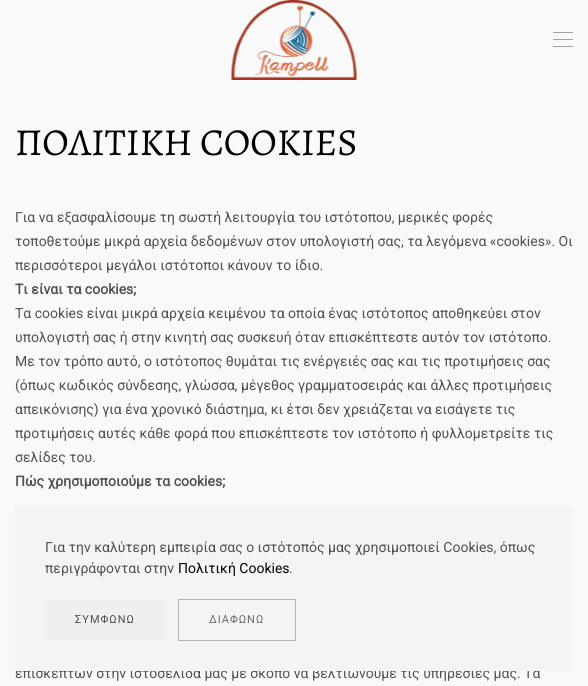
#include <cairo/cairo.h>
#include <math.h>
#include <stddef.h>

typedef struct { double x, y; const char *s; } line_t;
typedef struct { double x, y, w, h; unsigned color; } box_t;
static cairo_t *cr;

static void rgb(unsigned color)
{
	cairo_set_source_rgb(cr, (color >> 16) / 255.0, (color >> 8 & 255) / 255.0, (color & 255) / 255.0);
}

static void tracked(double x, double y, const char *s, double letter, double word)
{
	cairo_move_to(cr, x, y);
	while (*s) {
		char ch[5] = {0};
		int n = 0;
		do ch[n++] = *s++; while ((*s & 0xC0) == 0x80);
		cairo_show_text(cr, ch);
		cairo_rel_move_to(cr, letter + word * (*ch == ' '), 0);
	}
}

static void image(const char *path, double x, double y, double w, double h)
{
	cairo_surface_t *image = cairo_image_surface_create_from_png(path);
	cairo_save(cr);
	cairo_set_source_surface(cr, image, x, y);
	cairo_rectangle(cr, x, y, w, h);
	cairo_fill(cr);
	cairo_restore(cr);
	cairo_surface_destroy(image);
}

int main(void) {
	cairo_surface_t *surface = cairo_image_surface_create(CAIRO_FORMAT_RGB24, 588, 686);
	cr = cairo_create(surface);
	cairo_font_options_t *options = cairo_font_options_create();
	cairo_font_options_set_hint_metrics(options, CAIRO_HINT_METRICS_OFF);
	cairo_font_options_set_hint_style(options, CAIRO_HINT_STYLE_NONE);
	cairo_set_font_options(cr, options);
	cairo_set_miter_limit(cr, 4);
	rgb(0xf9f9f9);
	cairo_paint(cr);
	image("img/1.png", 231, 0, 126, 80);
	{
		static const box_t items[] = {
			{553, 32, 20, 1, 0xa2a2a2},
			{553, 39, 20, 1, 0xa2a2a2},
			{553, 46, 20, 1, 0xa2a2a2},
		};
		for (size_t i = 0; i < sizeof items / sizeof *items; i++) {
			rgb(items[i].color);
			cairo_rectangle(cr, items[i].x, items[i].y, items[i].w, items[i].h);
			cairo_fill(cr);
		}
	}
	cairo_select_font_face(cr, "Alegreya", CAIRO_FONT_SLANT_NORMAL, CAIRO_FONT_WEIGHT_NORMAL);
	cairo_set_font_size(cr, 38.25);
	rgb(0x010101);
	cairo_move_to(cr, 15, 155);
	cairo_show_text(cr, "ΠΟΛΙΤΙΚΗ COOKIES");
	cairo_select_font_face(cr, "Roboto", CAIRO_FONT_SLANT_NORMAL, CAIRO_FONT_WEIGHT_NORMAL);
	cairo_set_font_size(cr, 14);
	rgb(0x524f4f);
	{
		static const line_t items[] = {
			{15, 222, "Για να εξασφαλίσουμε τη σωστή λειτουργία του ιστότοπου, μερικές φορές"},
			{15, 246, "τοποθετούμε μικρά αρχεία δεδομένων στον υπολογιστή σας, τα λεγόμενα «cookies». Οι"},
			{15, 270, "περισσότεροι μεγάλοι ιστότοποι κάνουν το ίδιο."},
		};
		for (size_t i = 0; i < sizeof items / sizeof *items; i++) {
			cairo_move_to(cr, items[i].x, items[i].y);
			cairo_show_text(cr, items[i].s);
		}
	}
	cairo_select_font_face(cr, "Roboto", CAIRO_FONT_SLANT_NORMAL, CAIRO_FONT_WEIGHT_BOLD);
	cairo_move_to(cr, 15, 294);
	cairo_show_text(cr, "Τι είναι τα cookies;");
	cairo_select_font_face(cr, "Roboto", CAIRO_FONT_SLANT_NORMAL, CAIRO_FONT_WEIGHT_NORMAL);
	{
		static const line_t items[] = {
			{15, 318, "Τα cookies είναι μικρά αρχεία κειμένου τα οποία ένας ιστότοπος αποθηκεύει στον"},
			{15, 342, "υπολογιστή σας ή στην κινητή σας συσκευή όταν επισκέπτεστε αυτόν τον ιστότοπο."},
			{15, 366, "Με τον τρόπο αυτό, ο ιστότοπος θυμάται τις ενέργειές σας και τις προτιμήσεις σας"},
			{15, 390, "(όπως κωδικός σύνδεσης, γλώσσα, μέγεθος γραμματοσειράς και άλλες προτιμήσεις"},
			{15, 414, "απεικόνισης) για ένα χρονικό διάστημα, κι έτσι δεν χρειάζεται να εισάγετε τις"},
			{15, 438, "προτιμήσεις αυτές κάθε φορά που επισκέπτεστε τον ιστότοπο ή φυλλομετρείτε τις"},
			{15, 462, "σελίδες του."},
		};
		for (size_t i = 0; i < sizeof items / sizeof *items; i++) {
			cairo_move_to(cr, items[i].x, items[i].y);
			cairo_show_text(cr, items[i].s);
		}
	}
	cairo_select_font_face(cr, "Roboto", CAIRO_FONT_SLANT_NORMAL, CAIRO_FONT_WEIGHT_BOLD);
	cairo_move_to(cr, 15, 486);
	cairo_show_text(cr, "Πώς χρησιμοποιούμε τα cookies;");
	cairo_select_font_face(cr, "Roboto", CAIRO_FONT_SLANT_NORMAL, CAIRO_FONT_WEIGHT_NORMAL);
	cairo_move_to(cr, 15, 678);
	cairo_show_text(cr, "επισκεπτών στην ιστοσελίδα μας με σκοπό να βελτιώνουμε τις υπηρεσίες μας. Τα");
	rgb(0xf4f4f2);
	cairo_rectangle(cr, 15, 507, 558, 164);
	cairo_fill(cr);
	rgb(0x524f4f);
	cairo_move_to(cr, 45, 552);
	cairo_show_text(cr, "Για την καλύτερη εμπειρία σας ο ιστότοπός μας χρησιμοποιεί Cookies, όπως");
	cairo_move_to(cr, 45, 573);
	cairo_show_text(cr, "περιγράφονται στην");
	rgb(0x010101);
	cairo_move_to(cr, 178, 573);
	cairo_show_text(cr, "Πολιτική Cookies");
	rgb(0x524f4f);
	cairo_move_to(cr, 289, 573);
	cairo_show_text(cr, ".");
	rgb(0xefefef);
	cairo_rectangle(cr, 45, 600, 120, 40);
	cairo_fill(cr);
	cairo_set_font_size(cr, 11);
	rgb(0x524f4f);
	tracked(75, 623, "ΣΥΜΦΩΝΩ", 1, 0);
	cairo_rectangle(cr, 178.5, 599.5, 117, 41);
	rgb(0xb5b5b5);
	cairo_set_line_width(cr, 1);
	cairo_stroke(cr);
	rgb(0x696969);
	tracked(209, 623, "ΔΙΑΦΩΝΩ", 1, 0);
	cairo_surface_write_to_png(surface, "page.png");
	cairo_font_options_destroy(options);
	cairo_destroy(cr);
	cairo_surface_destroy(surface);
	return 0;
}
